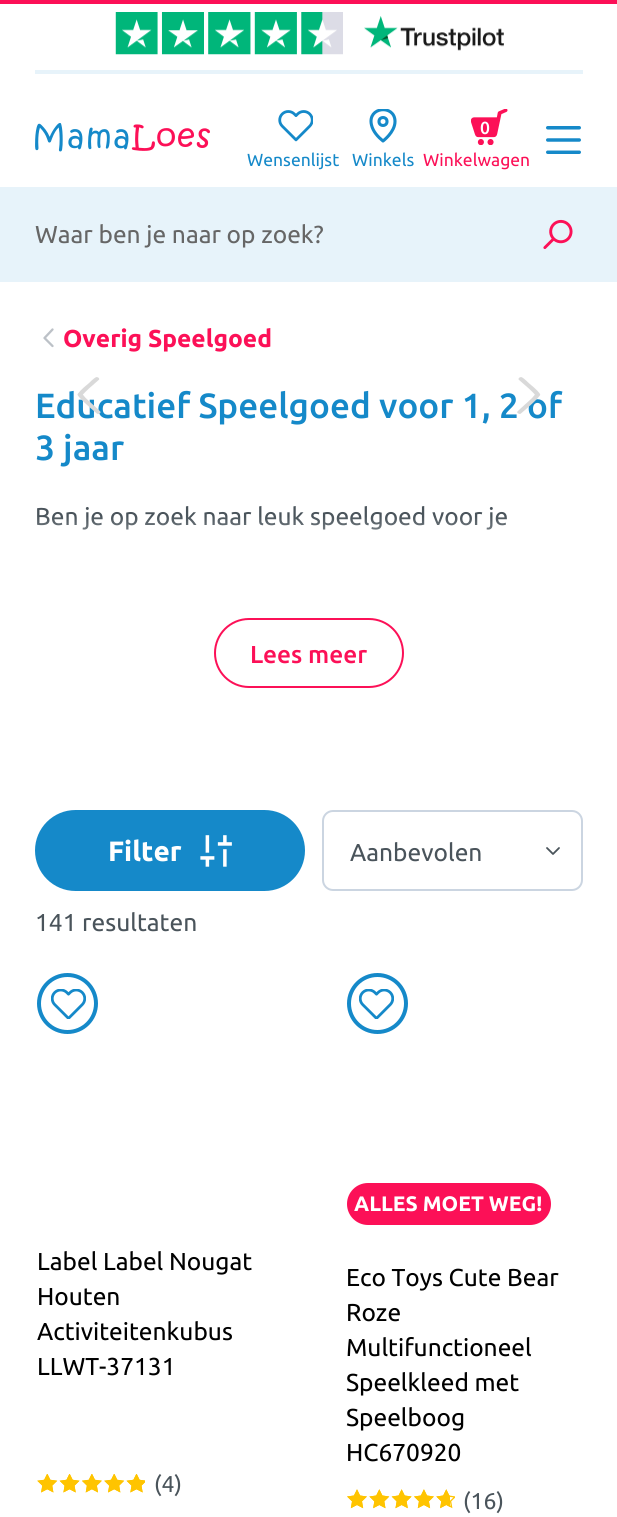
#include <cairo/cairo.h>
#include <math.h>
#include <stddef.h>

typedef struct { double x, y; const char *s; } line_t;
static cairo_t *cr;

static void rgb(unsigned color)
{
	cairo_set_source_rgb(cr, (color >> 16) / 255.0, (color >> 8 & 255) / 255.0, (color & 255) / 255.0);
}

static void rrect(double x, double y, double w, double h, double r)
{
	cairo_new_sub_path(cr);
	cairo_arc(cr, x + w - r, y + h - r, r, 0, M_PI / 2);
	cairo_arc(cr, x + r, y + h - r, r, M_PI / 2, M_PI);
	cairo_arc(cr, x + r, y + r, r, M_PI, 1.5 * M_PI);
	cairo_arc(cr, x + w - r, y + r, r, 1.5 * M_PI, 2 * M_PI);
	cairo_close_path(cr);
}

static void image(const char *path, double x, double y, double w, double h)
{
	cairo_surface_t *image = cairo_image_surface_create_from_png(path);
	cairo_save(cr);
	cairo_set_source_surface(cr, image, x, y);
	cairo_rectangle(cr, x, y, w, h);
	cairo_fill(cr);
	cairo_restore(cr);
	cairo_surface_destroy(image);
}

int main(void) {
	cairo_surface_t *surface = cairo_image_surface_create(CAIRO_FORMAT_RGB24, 617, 1517);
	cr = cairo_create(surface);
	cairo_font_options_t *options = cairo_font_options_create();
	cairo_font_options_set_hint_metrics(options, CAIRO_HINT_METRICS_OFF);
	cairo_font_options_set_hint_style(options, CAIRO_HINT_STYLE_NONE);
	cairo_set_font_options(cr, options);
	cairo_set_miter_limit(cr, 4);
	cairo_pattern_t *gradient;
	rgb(0xffffff);
	cairo_paint(cr);
	rgb(0xfc1057);
	cairo_rectangle(cr, 0, 0, 617, 4);
	cairo_fill(cr);
	rgb(0xe7f3fa);
	cairo_rectangle(cr, 35, 70, 548, 4);
	cairo_fill(cr);
	image("img/1.png", 115, 12, 389, 43);
	image("img/2.png", 35, 123, 175, 29);
	image("img/3.png", 278, 110, 35, 32);
	cairo_save(cr);
	cairo_rectangle(cr, 369, 109, 28, 35);
	cairo_clip(cr);
	cairo_new_path(cr);
	cairo_move_to(cr, 395, 121.5);
	cairo_curve_to(cr, 395, 132, 383, 141, 383, 141);
	cairo_curve_to(cr, 378, 137, 373, 131.5, 371.5, 125);
	cairo_curve_to(cr, 367, 106.5, 395, 104, 395, 121.5);
	cairo_close_path(cr);
	rgb(0x1589c9);
	cairo_set_line_width(cr, 3.1);
	cairo_set_line_join(cr, CAIRO_LINE_JOIN_ROUND);
	cairo_stroke(cr);
	cairo_restore(cr);
	cairo_arc(cr, 383, 121.5, 4, 0, 2 * M_PI);
	rgb(0x1589c9);
	cairo_set_line_width(cr, 3.1);
	cairo_stroke(cr);
	image("img/4.png", 471, 109, 37, 36);
	image("img/5.png", 546, 126, 35, 28);
	rgb(0xe7f3fa);
	cairo_rectangle(cr, 0, 187, 617, 95);
	cairo_fill(cr);
	image("img/6.png", 543, 219, 30, 30);
	cairo_new_path(cr);
	cairo_move_to(cr, 52.5, 346);
	cairo_line_to(cr, 44.5, 338);
	cairo_line_to(cr, 52.5, 329.5);
	rgb(0xbcc1c7);
	cairo_set_line_width(cr, 2.3);
	cairo_set_line_cap(cr, CAIRO_LINE_CAP_ROUND);
	cairo_set_line_join(cr, CAIRO_LINE_JOIN_ROUND);
	cairo_stroke(cr);
	rrect(215, 619, 188, 68, 34);
	rgb(0xfc1057);
	cairo_set_line_width(cr, 2);
	cairo_set_line_cap(cr, CAIRO_LINE_CAP_BUTT);
	cairo_set_line_join(cr, CAIRO_LINE_JOIN_MITER);
	cairo_stroke(cr);
	rgb(0x1589c9);
	rrect(35, 810, 270, 81, 40.5);
	cairo_fill(cr);
	image("img/9.png", 200, 835, 32, 32);
	cairo_new_path(cr);
	cairo_move_to(cr, 559, 848);
	cairo_line_to(cr, 553, 854);
	cairo_line_to(cr, 547, 848);
	rgb(0x4a545b);
	cairo_set_line_width(cr, 1.8);
	cairo_set_line_cap(cr, CAIRO_LINE_CAP_ROUND);
	cairo_set_line_join(cr, CAIRO_LINE_JOIN_ROUND);
	cairo_stroke(cr);
	rrect(323, 811, 259, 79, 10);
	rgb(0xcbd5e1);
	cairo_set_line_width(cr, 2);
	cairo_set_line_cap(cr, CAIRO_LINE_CAP_BUTT);
	cairo_set_line_join(cr, CAIRO_LINE_JOIN_MITER);
	cairo_stroke(cr);
	image("img/10.png", 51, 989, 35, 30);
	cairo_arc(cr, 67.5, 1003.5, 28.5, 0, 2 * M_PI);
	rgb(0x1589c9);
	cairo_set_line_width(cr, 4);
	cairo_stroke(cr);
	image("img/11.png", 37, 1474, 108, 19);
	image("img/12.png", 37, 1474, 108, 19);
	image("img/10.png", 359, 989, 35, 30);
	cairo_arc(cr, 377.5, 1003.5, 28.5, 0, 2 * M_PI);
	cairo_stroke(cr);
	rgb(0xfc1057);
	rrect(347, 1183, 204, 42, 21);
	cairo_fill(cr);
	image("img/13.png", 347, 1489, 108, 20);
	image("img/14.png", 347, 1489, 103, 20);
	cairo_select_font_face(cr, "Ubuntu", CAIRO_FONT_SLANT_NORMAL, CAIRO_FONT_WEIGHT_NORMAL);
	cairo_set_font_size(cr, 17.5);
	rgb(0x1589c9);
	cairo_move_to(cr, 247, 166);
	cairo_show_text(cr, "Wensenlijst");
	cairo_move_to(cr, 352, 166);
	cairo_show_text(cr, "Winkels");
	cairo_select_font_face(cr, "Ubuntu Medium", CAIRO_FONT_SLANT_NORMAL, CAIRO_FONT_WEIGHT_NORMAL);
	rgb(0xffffff);
	cairo_move_to(cr, 480, 134);
	cairo_show_text(cr, "0");
	cairo_select_font_face(cr, "Ubuntu", CAIRO_FONT_SLANT_NORMAL, CAIRO_FONT_WEIGHT_NORMAL);
	rgb(0xfc1057);
	cairo_move_to(cr, 423, 166);
	cairo_show_text(cr, "Winkelwagen");
	cairo_set_font_size(cr, 24.5);
	rgb(0x666666);
	cairo_move_to(cr, 35, 243);
	cairo_show_text(cr, "Waar ben je naar op zoek?");
	cairo_select_font_face(cr, "Ubuntu", CAIRO_FONT_SLANT_NORMAL, CAIRO_FONT_WEIGHT_BOLD);
	rgb(0xfc1057);
	cairo_move_to(cr, 63, 347);
	cairo_show_text(cr, "Overig Speelgoed");
	cairo_select_font_face(cr, "Ubuntu Medium", CAIRO_FONT_SLANT_NORMAL, CAIRO_FONT_WEIGHT_NORMAL);
	cairo_set_font_size(cr, 35);
	rgb(0x1589c9);
	cairo_move_to(cr, 35, 418);
	cairo_show_text(cr, "Educatief Speelgoed voor 1, 2 of");
	image("img/7.png", 77, 377, 24, 37);
	image("img/8.png", 517, 377, 24, 37);
	cairo_move_to(cr, 35, 460);
	cairo_show_text(cr, "3 jaar");
	cairo_select_font_face(cr, "Ubuntu", CAIRO_FONT_SLANT_NORMAL, CAIRO_FONT_WEIGHT_NORMAL);
	cairo_set_font_size(cr, 24.5);
	rgb(0x4a545b);
	cairo_move_to(cr, 35, 525);
	cairo_show_text(cr, "Ben je op zoek naar leuk speelgoed voor je");
	gradient = cairo_pattern_create_linear(309, 600, 309, 495);
	cairo_pattern_add_color_stop_rgba(gradient, 0.2, 1, 1, 1, 1);
	cairo_pattern_add_color_stop_rgba(gradient, 0.8, 1, 1, 1, 0);
	cairo_set_source(cr, gradient);
	cairo_pattern_destroy(gradient);
	cairo_rectangle(cr, 37, 517, 470, 13);
	cairo_fill(cr);
	cairo_select_font_face(cr, "Ubuntu Medium", CAIRO_FONT_SLANT_NORMAL, CAIRO_FONT_WEIGHT_NORMAL);
	rgb(0xfc1057);
	cairo_move_to(cr, 250, 663);
	cairo_show_text(cr, "Lees meer");
	cairo_select_font_face(cr, "Ubuntu", CAIRO_FONT_SLANT_NORMAL, CAIRO_FONT_WEIGHT_BOLD);
	cairo_set_font_size(cr, 28);
	rgb(0xffffff);
	cairo_move_to(cr, 108, 861);
	cairo_show_text(cr, "Filter");
	cairo_select_font_face(cr, "Ubuntu", CAIRO_FONT_SLANT_NORMAL, CAIRO_FONT_WEIGHT_NORMAL);
	cairo_set_font_size(cr, 24.5);
	rgb(0x4a545b);
	cairo_move_to(cr, 350, 861);
	cairo_show_text(cr, "Aanbevolen");
	cairo_move_to(cr, 35, 931);
	cairo_show_text(cr, "141 resultaten");
	rgb(0x000000);
	{
		static const line_t items[] = {
			{37, 1270, "Label Label Nougat"},
			{37, 1305, "Houten"},
			{37, 1340, "Activiteitenkubus"},
			{37, 1375, "LLWT-37131"},
		};
		for (size_t i = 0; i < sizeof items / sizeof *items; i++) {
			cairo_move_to(cr, items[i].x, items[i].y);
			cairo_show_text(cr, items[i].s);
		}
	}
	cairo_set_font_size(cr, 23);
	rgb(0x4a545b);
	cairo_move_to(cr, 154, 1492);
	cairo_show_text(cr, "(4)");
	cairo_select_font_face(cr, "Ubuntu", CAIRO_FONT_SLANT_NORMAL, CAIRO_FONT_WEIGHT_BOLD);
	cairo_set_font_size(cr, 21);
	rgb(0xffffff);
	cairo_move_to(cr, 354, 1211);
	cairo_show_text(cr, "ALLES MOET WEG!");
	cairo_select_font_face(cr, "Ubuntu", CAIRO_FONT_SLANT_NORMAL, CAIRO_FONT_WEIGHT_NORMAL);
	cairo_set_font_size(cr, 24.5);
	rgb(0x000000);
	{
		static const line_t items[] = {
			{346, 1286, "Eco Toys Cute Bear"},
			{346, 1321, "Roze"},
			{346, 1356, "Multifunctioneel"},
			{346, 1391, "Speelkleed met"},
			{346, 1426, "Speelboog"},
			{346, 1461, "HC670920"},
		};
		for (size_t i = 0; i < sizeof items / sizeof *items; i++) {
			cairo_move_to(cr, items[i].x, items[i].y);
			cairo_show_text(cr, items[i].s);
		}
	}
	cairo_set_font_size(cr, 23);
	rgb(0x4a545b);
	cairo_move_to(cr, 463, 1509);
	cairo_show_text(cr, "(16)");
	cairo_surface_write_to_png(surface, "page.png");
	cairo_font_options_destroy(options);
	cairo_destroy(cr);
	cairo_surface_destroy(surface);
	return 0;
}
